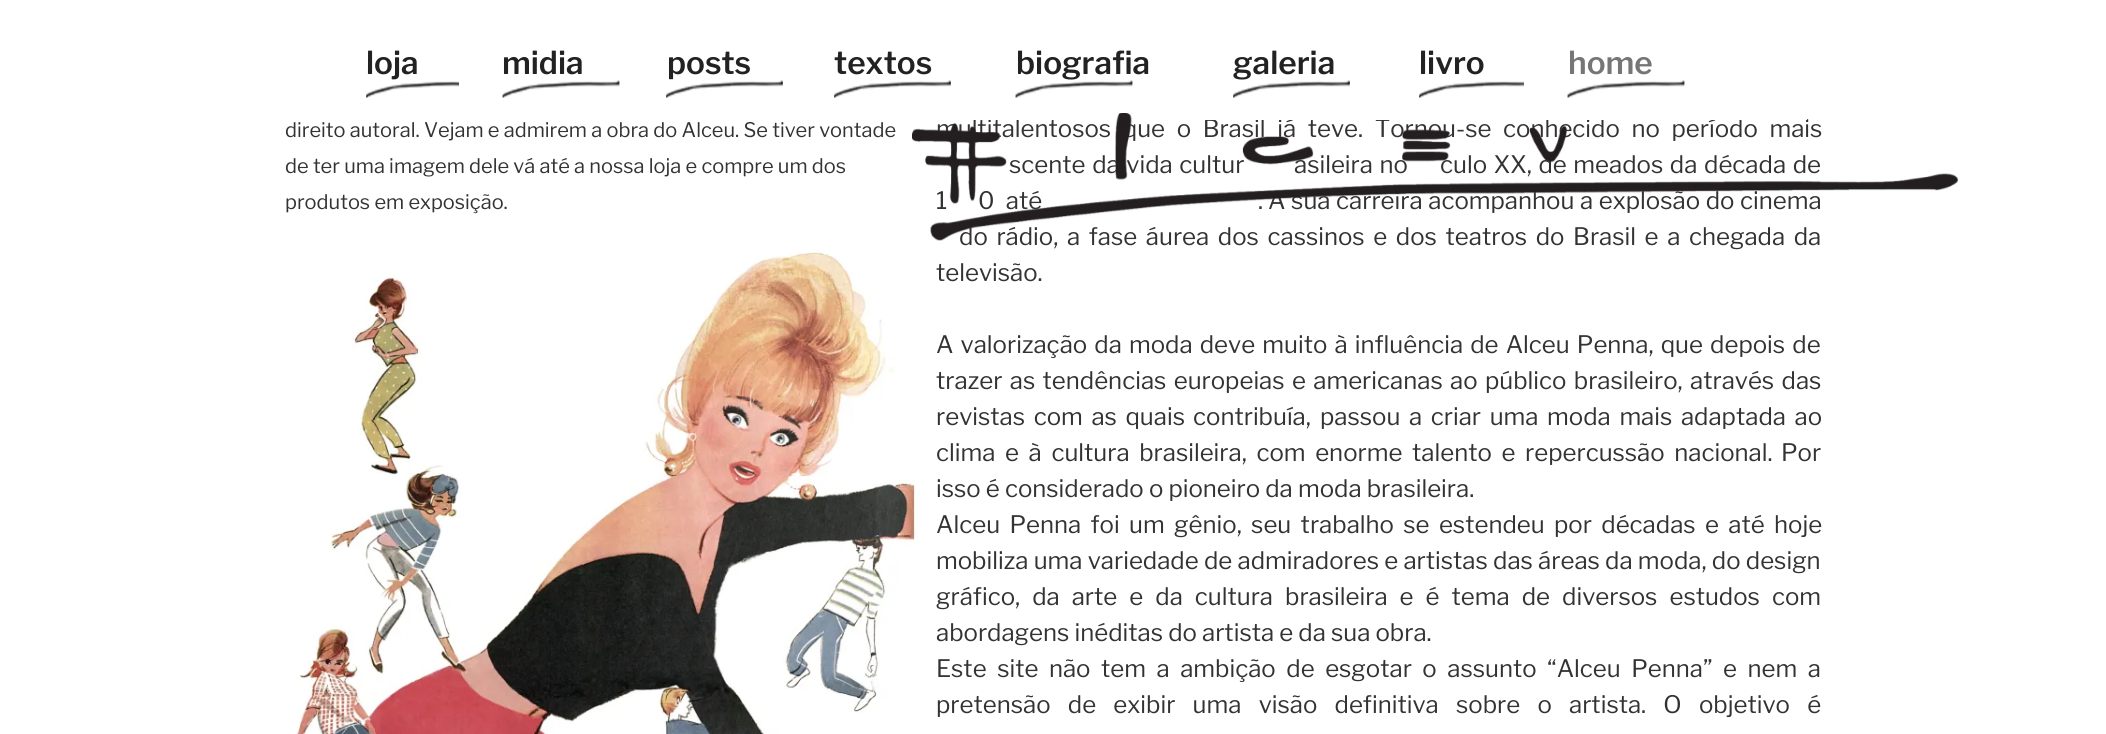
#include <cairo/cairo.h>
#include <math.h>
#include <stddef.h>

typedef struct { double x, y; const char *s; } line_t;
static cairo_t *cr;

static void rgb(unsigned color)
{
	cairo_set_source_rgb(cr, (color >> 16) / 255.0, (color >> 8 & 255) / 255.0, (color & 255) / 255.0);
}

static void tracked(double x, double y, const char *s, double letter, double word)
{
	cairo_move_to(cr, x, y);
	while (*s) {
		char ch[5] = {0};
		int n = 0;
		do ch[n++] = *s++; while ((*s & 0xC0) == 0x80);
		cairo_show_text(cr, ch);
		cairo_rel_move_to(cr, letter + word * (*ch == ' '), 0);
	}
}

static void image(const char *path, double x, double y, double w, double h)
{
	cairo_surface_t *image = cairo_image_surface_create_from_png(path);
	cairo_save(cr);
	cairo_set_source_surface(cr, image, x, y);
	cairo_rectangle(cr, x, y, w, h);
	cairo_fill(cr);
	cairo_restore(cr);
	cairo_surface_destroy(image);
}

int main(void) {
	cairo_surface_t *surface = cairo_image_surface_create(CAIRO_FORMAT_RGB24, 2106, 734);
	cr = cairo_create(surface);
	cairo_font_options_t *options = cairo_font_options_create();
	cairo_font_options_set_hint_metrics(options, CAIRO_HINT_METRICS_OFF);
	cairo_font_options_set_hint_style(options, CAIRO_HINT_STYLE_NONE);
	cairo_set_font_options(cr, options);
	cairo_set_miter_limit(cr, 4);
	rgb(0xffffff);
	cairo_paint(cr);
	image("img/1.png", 366, 81, 93, 17);
	image("img/2.png", 502, 80, 118, 18);
	image("img/3.png", 666, 80, 117, 18);
	image("img/4.png", 834, 80, 117, 18);
	image("img/2.png", 1015, 80, 118, 18);
	image("img/3.png", 1233, 80, 117, 18);
	image("img/5.png", 1419, 81, 105, 17);
	image("img/2.png", 1567, 80, 118, 18);
	image("img/7.png", 296, 252, 619, 482);
	cairo_select_font_face(cr, "Libre Franklin SemiBold", CAIRO_FONT_SLANT_NORMAL, CAIRO_FONT_WEIGHT_NORMAL);
	cairo_set_font_size(cr, 31.5);
	rgb(0x222222);
	{
		static const line_t items[] = {
			{366, 74, "loja"},
			{502, 74, "midia"},
			{667, 74, "posts"},
			{834, 74, "textos"},
			{1016, 74, "biografia"},
			{1233, 74, "galeria"},
			{1419, 74, "livro"},
		};
		for (size_t i = 0; i < sizeof items / sizeof *items; i++) {
			cairo_move_to(cr, items[i].x, items[i].y);
			cairo_show_text(cr, items[i].s);
		}
	}
	rgb(0x767676);
	cairo_move_to(cr, 1568, 74);
	cairo_show_text(cr, "home");
	cairo_select_font_face(cr, "Libre Franklin", CAIRO_FONT_SLANT_NORMAL, CAIRO_FONT_WEIGHT_NORMAL);
	cairo_set_font_size(cr, 20);
	rgb(0x333333);
	{
		static const line_t items[] = {
			{285, 137, "direito autoral. Vejam e admirem a obra do Alceu. Se tiver vontade"},
			{285, 173, "de ter uma imagem dele vá até a nossa loja e compre um dos"},
			{285, 209, "produtos em exposição."},
		};
		for (size_t i = 0; i < sizeof items / sizeof *items; i++) {
			cairo_move_to(cr, items[i].x, items[i].y);
			cairo_show_text(cr, items[i].s);
		}
	}
	cairo_set_font_size(cr, 24);
	tracked(936, 137, "multitalentosos que o Brasil já teve. Tornou-se conhecido no período mais", 0, 6.5);
	{
		static const line_t items[] = {
			{1009, 173, "scente da vida cultur"},
			{1294, 173, "asileira no"},
			{1440, 173, "culo XX, de meados da década de"},
		};
		for (size_t i = 0; i < sizeof items / sizeof *items; i++) {
			tracked(items[i].x, items[i].y, items[i].s, 0, 1.5);
		}
	}
	{
		static const line_t items[] = {
			{936, 209, "1"},
			{978, 209, "0  até"},
			{1258, 209, "."},
			{1268, 209, "A sua carreira acompanhou a explosão do cinema"},
		};
		for (size_t i = 0; i < sizeof items / sizeof *items; i++) {
			tracked(items[i].x, items[i].y, items[i].s, 0, 0.5);
		}
	}
	tracked(959, 245, "do rádio, a fase áurea dos cassinos e dos teatros do Brasil e a chegada da", 0, 3.5);
	cairo_move_to(cr, 936, 281);
	cairo_show_text(cr, "televisão.");
	tracked(936, 353, "A valorização da moda deve muito à influência de Alceu Penna, que depois de", 0, 2);
	tracked(936, 389, "trazer as tendências europeias e americanas ao público brasileiro, através das", 0, 2.25);
	tracked(936, 425, "revistas com as quais", 0, 3.5);
	cairo_move_to(cr, 1193, 425);
	cairo_show_text(cr, "contribuía,");
	tracked(1320, 425, "passou a criar uma moda mais adaptada ao", 0, 3.5);
	tracked(936, 461, "clima e à cultura brasileira, com enorme talento e repercussão nacional.", 0, 4.5);
	cairo_move_to(cr, 1781, 461);
	cairo_show_text(cr, "Por");
	cairo_move_to(cr, 936, 497);
	cairo_show_text(cr, "isso é considerado o pioneiro da moda brasileira.");
	tracked(936, 533, "Alceu Penna foi um gênio, seu trabalho se estendeu por décadas e até hoje", 0, 4.25);
	tracked(936, 569, "mobiliza uma variedade de admiradores e artistas das áreas da moda, do design", 0, 0.1);
	tracked(936, 605, "gráfico, da arte e da cultura brasileira e é tema de diversos estudos com", 0, 6.9);
	cairo_move_to(cr, 936, 641);
	cairo_show_text(cr, "abordagens inéditas do artista e da sua obra.");
	tracked(936, 677, "Este site não tem a ambição de esgotar o assunto “Alceu Penna” e nem a", 0, 5.4);
	tracked(936, 713, "pretensão de exibir uma visão definitiva sobre o artista. O objetivo é", 0, 12.1);
	rgb(0xffffff);
	cairo_rectangle(cr, 973, 118, 834, 2);
	cairo_fill(cr);
	image("img/6.png", 912, 113, 1047, 128);
	cairo_surface_write_to_png(surface, "page.png");
	cairo_font_options_destroy(options);
	cairo_destroy(cr);
	cairo_surface_destroy(surface);
	return 0;
}
